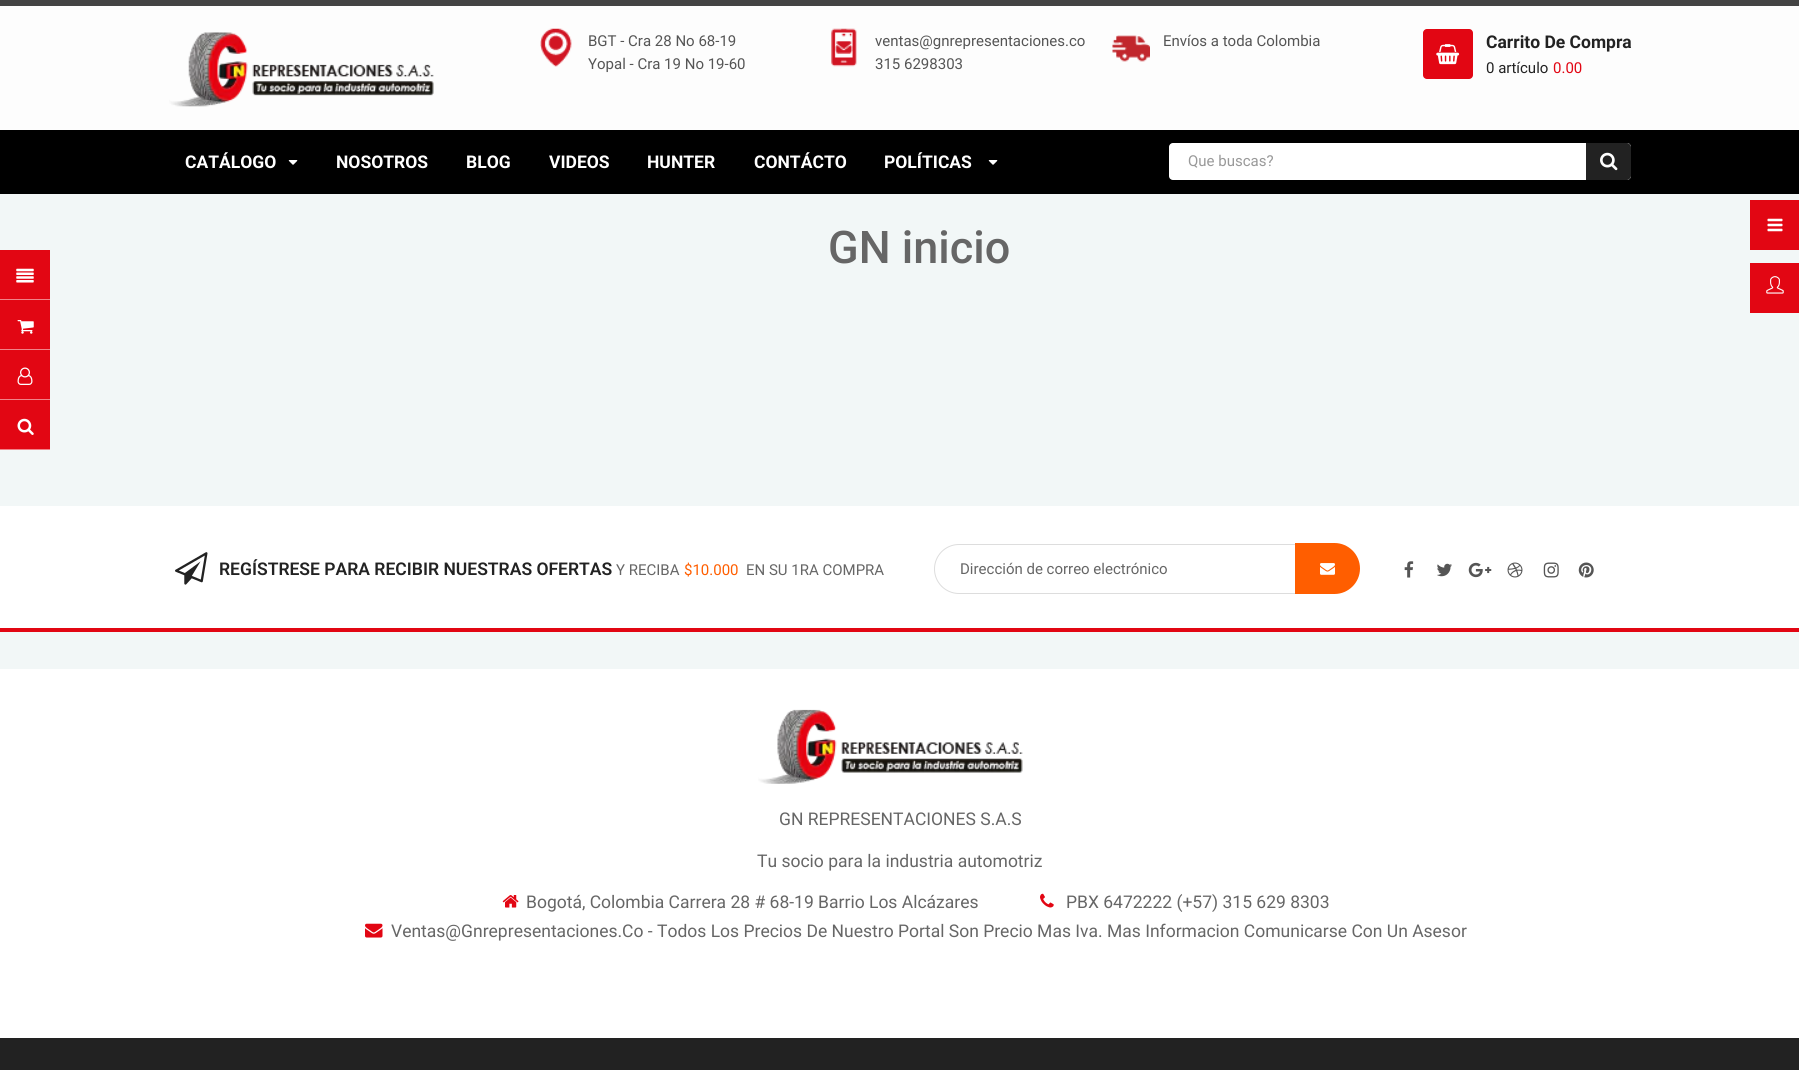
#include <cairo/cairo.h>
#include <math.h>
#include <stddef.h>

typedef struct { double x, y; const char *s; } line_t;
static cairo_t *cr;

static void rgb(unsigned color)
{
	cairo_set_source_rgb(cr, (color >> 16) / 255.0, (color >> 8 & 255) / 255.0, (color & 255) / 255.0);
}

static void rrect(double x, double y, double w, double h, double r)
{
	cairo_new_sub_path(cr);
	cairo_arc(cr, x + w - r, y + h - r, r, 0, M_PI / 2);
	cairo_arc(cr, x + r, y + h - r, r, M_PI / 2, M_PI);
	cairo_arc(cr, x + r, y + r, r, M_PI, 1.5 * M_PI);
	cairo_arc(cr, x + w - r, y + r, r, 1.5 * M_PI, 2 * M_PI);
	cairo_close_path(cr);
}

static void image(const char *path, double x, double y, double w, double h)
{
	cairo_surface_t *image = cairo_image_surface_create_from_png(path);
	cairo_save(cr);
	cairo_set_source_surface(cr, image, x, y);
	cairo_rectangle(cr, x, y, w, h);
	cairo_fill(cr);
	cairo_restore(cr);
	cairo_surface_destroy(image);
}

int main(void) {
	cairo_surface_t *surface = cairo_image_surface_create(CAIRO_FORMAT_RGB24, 1799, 1070);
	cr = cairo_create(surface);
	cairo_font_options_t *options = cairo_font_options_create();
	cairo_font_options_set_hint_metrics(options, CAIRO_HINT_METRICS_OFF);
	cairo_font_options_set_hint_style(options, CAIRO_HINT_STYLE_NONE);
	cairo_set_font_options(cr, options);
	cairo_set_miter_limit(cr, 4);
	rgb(0xf2f7f7);
	cairo_paint(cr);
	rgb(0xfdfdfd);
	cairo_rectangle(cr, 0, 6, 1799, 124);
	cairo_fill(cr);
	rgb(0x444444);
	cairo_rectangle(cr, 0, 0, 1799, 6);
	cairo_fill(cr);
	image("img/1.png", 169, 32, 265, 75);
	image("img/2.png", 540, 28, 32, 39);
	image("img/3.png", 831, 28, 26, 39);
	image("img/4.png", 1112, 35, 38, 27);
	rgb(0xe20613);
	rrect(1423, 29, 50, 50, 4);
	cairo_fill(cr);
	image("img/5.png", 1436, 44, 24, 21);
	rgb(0x000000);
	cairo_rectangle(cr, 0, 130, 1799, 64);
	cairo_fill(cr);
	image("img/6.png", 288, 160, 10, 5);
	image("img/6.png", 988, 160, 10, 5);
	rgb(0xffffff);
	rrect(1169, 143, 462, 37, 4);
	cairo_fill(cr);
	rgb(0x222222);
	cairo_new_path(cr);
	cairo_move_to(cr, 1586, 143);
	cairo_line_to(cr, 1627, 143);
	cairo_curve_to(cr, 1629, 143, 1631, 145, 1631, 147);
	cairo_line_to(cr, 1631, 176);
	cairo_curve_to(cr, 1631, 178, 1629, 180, 1627, 180);
	cairo_line_to(cr, 1586, 180);
	cairo_close_path(cr);
	cairo_fill(cr);
	image("img/7.png", 1600, 152, 18, 19);
	rgb(0xe20613);
	cairo_rectangle(cr, 1750, 200, 49, 50);
	cairo_fill(cr);
	image("img/8.png", 1767, 218, 16, 14);
	cairo_rectangle(cr, 1750, 263, 49, 50);
	cairo_fill(cr);
	image("img/9.png", 1766, 276, 18, 18);
	cairo_rectangle(cr, 0, 250, 50, 49);
	cairo_fill(cr);
	rgb(0xf18389);
	cairo_rectangle(cr, 0, 299, 50, 1);
	cairo_fill(cr);
	image("img/10.png", 16, 268, 18, 15);
	rgb(0xe20613);
	cairo_rectangle(cr, 0, 300, 50, 49);
	cairo_fill(cr);
	rgb(0xf18389);
	cairo_rectangle(cr, 0, 349, 50, 1);
	cairo_fill(cr);
	image("img/11.png", 17, 320, 17, 14);
	rgb(0xe20613);
	cairo_rectangle(cr, 0, 350, 50, 49);
	cairo_fill(cr);
	rgb(0xf18389);
	cairo_rectangle(cr, 0, 399, 50, 1);
	cairo_fill(cr);
	image("img/12.png", 17, 367, 16, 18);
	rgb(0xe20613);
	cairo_rectangle(cr, 0, 400, 50, 49);
	cairo_fill(cr);
	rgb(0xf18389);
	cairo_rectangle(cr, 0, 449, 50, 1);
	cairo_fill(cr);
	image("img/13.png", 17, 418, 17, 17);
	rgb(0xffffff);
	cairo_rectangle(cr, 0, 506, 1799, 122);
	cairo_fill(cr);
	image("img/14.png", 175, 552, 33, 33);
	rrect(934.5, 544.5, 419, 49, 24.5);
	rgb(0xdddddd);
	cairo_set_line_width(cr, 1);
	cairo_stroke(cr);
	rgb(0xff5e00);
	cairo_new_path(cr);
	cairo_move_to(cr, 1295, 543);
	cairo_line_to(cr, 1334.5, 543);
	cairo_curve_to(cr, 1348.5, 543, 1360, 554.5, 1360, 568.5);
	cairo_curve_to(cr, 1360, 582.5, 1348.5, 594, 1334.5, 594);
	cairo_line_to(cr, 1295, 594);
	cairo_close_path(cr);
	cairo_fill(cr);
	image("img/15.png", 1320, 563, 15, 12);
	image("img/16.png", 1404, 561, 10, 17);
	image("img/17.png", 1437, 563, 15, 14);
	image("img/18.png", 1468, 562, 24, 16);
	image("img/19.png", 1507, 562, 16, 16);
	image("img/20.png", 1543, 562, 16, 16);
	image("img/21.png", 1578, 562, 16, 16);
	rgb(0xe20613);
	cairo_rectangle(cr, 0, 628, 1799, 4);
	cairo_fill(cr);
	rgb(0xffffff);
	cairo_rectangle(cr, 0, 669, 1799, 369);
	cairo_fill(cr);
	image("img/22.png", 758, 709, 265, 75);
	image("img/23.png", 502, 895, 17, 13);
	image("img/24.png", 1040, 893, 14, 15);
	image("img/25.png", 365, 923, 18, 15);
	rgb(0x222222);
	cairo_rectangle(cr, 0, 1038, 1799, 32);
	cairo_fill(cr);
	cairo_select_font_face(cr, "Roboto", CAIRO_FONT_SLANT_NORMAL, CAIRO_FONT_WEIGHT_NORMAL);
	cairo_set_font_size(cr, 15);
	rgb(0x555555);
	{
		static const line_t items[] = {
			{588, 46, "BGT - Cra 28 No 68-19"},
			{588, 69, "Yopal - Cra 19 No 19-60"},
			{875, 46, "ventas@gnrepresentaciones.co"},
			{875, 69, "315 6298303"},
			{1163, 46, "Envíos a toda Colombia"},
		};
		for (size_t i = 0; i < sizeof items / sizeof *items; i++) {
			cairo_move_to(cr, items[i].x, items[i].y);
			cairo_show_text(cr, items[i].s);
		}
	}
	cairo_select_font_face(cr, "Roboto", CAIRO_FONT_SLANT_NORMAL, CAIRO_FONT_WEIGHT_BOLD);
	cairo_set_font_size(cr, 17.5);
	rgb(0x222222);
	cairo_move_to(cr, 1486, 48);
	cairo_show_text(cr, "Carrito De Compra");
	cairo_select_font_face(cr, "Roboto", CAIRO_FONT_SLANT_NORMAL, CAIRO_FONT_WEIGHT_NORMAL);
	cairo_set_font_size(cr, 15);
	cairo_move_to(cr, 1486, 73);
	cairo_show_text(cr, "0 artículo");
	rgb(0xe20613);
	cairo_move_to(cr, 1553, 73);
	cairo_show_text(cr, "0.00");
	cairo_select_font_face(cr, "Roboto", CAIRO_FONT_SLANT_NORMAL, CAIRO_FONT_WEIGHT_BOLD);
	cairo_set_font_size(cr, 17.5);
	rgb(0xffffff);
	{
		static const line_t items[] = {
			{185, 168, "CATÁLOGO"},
			{336, 168, "NOSOTROS"},
			{466, 168, "BLOG"},
			{549, 168, "VIDEOS"},
			{647, 168, "HUNTER"},
			{754, 168, "CONTÁCTO"},
			{884, 168, "POLÍTICAS"},
		};
		for (size_t i = 0; i < sizeof items / sizeof *items; i++) {
			cairo_move_to(cr, items[i].x, items[i].y);
			cairo_show_text(cr, items[i].s);
		}
	}
	cairo_select_font_face(cr, "Roboto", CAIRO_FONT_SLANT_NORMAL, CAIRO_FONT_WEIGHT_NORMAL);
	cairo_set_font_size(cr, 15);
	rgb(0x999999);
	cairo_move_to(cr, 1188, 166);
	cairo_show_text(cr, "Que buscas?");
	cairo_select_font_face(cr, "Roboto Medium", CAIRO_FONT_SLANT_NORMAL, CAIRO_FONT_WEIGHT_NORMAL);
	cairo_set_font_size(cr, 45);
	rgb(0x666666);
	cairo_move_to(cr, 828, 263);
	cairo_show_text(cr, "GN inicio");
	cairo_select_font_face(cr, "Roboto SemiBold", CAIRO_FONT_SLANT_NORMAL, CAIRO_FONT_WEIGHT_NORMAL);
	cairo_set_font_size(cr, 17.5);
	rgb(0x222222);
	cairo_move_to(cr, 219, 575);
	cairo_show_text(cr, "REGÍSTRESE PARA RECIBIR NUESTRAS OFERTAS");
	cairo_select_font_face(cr, "Roboto", CAIRO_FONT_SLANT_NORMAL, CAIRO_FONT_WEIGHT_NORMAL);
	cairo_set_font_size(cr, 15);
	rgb(0x666666);
	cairo_move_to(cr, 616, 575);
	cairo_show_text(cr, "Y RECIBA");
	rgb(0xff5e00);
	cairo_move_to(cr, 684, 575);
	cairo_show_text(cr, "$10.000");
	rgb(0x666666);
	cairo_move_to(cr, 746, 575);
	cairo_show_text(cr, "EN SU 1RA COMPRA");
	cairo_move_to(cr, 960, 574);
	cairo_show_text(cr, "Dirección de correo electrónico");
	cairo_set_font_size(cr, 17.5);
	{
		static const line_t items[] = {
			{779, 825, "GN REPRESENTACIONES S.A.S"},
			{757, 867, "Tu socio para la industria automotriz"},
			{526, 908, "Bogotá, Colombia Carrera 28 # 68-19 Barrio Los Alcázares"},
			{1066, 908, "PBX 6472222 (+57) 315 629 8303"},
			{391, 937, "Ventas@Gnrepresentaciones.Co - Todos Los Precios De Nuestro Portal Son Precio Mas Iva. Mas Informacion Comunicarse Con Un Asesor"},
		};
		for (size_t i = 0; i < sizeof items / sizeof *items; i++) {
			cairo_move_to(cr, items[i].x, items[i].y);
			cairo_show_text(cr, items[i].s);
		}
	}
	cairo_surface_write_to_png(surface, "page.png");
	cairo_font_options_destroy(options);
	cairo_destroy(cr);
	cairo_surface_destroy(surface);
	return 0;
}
